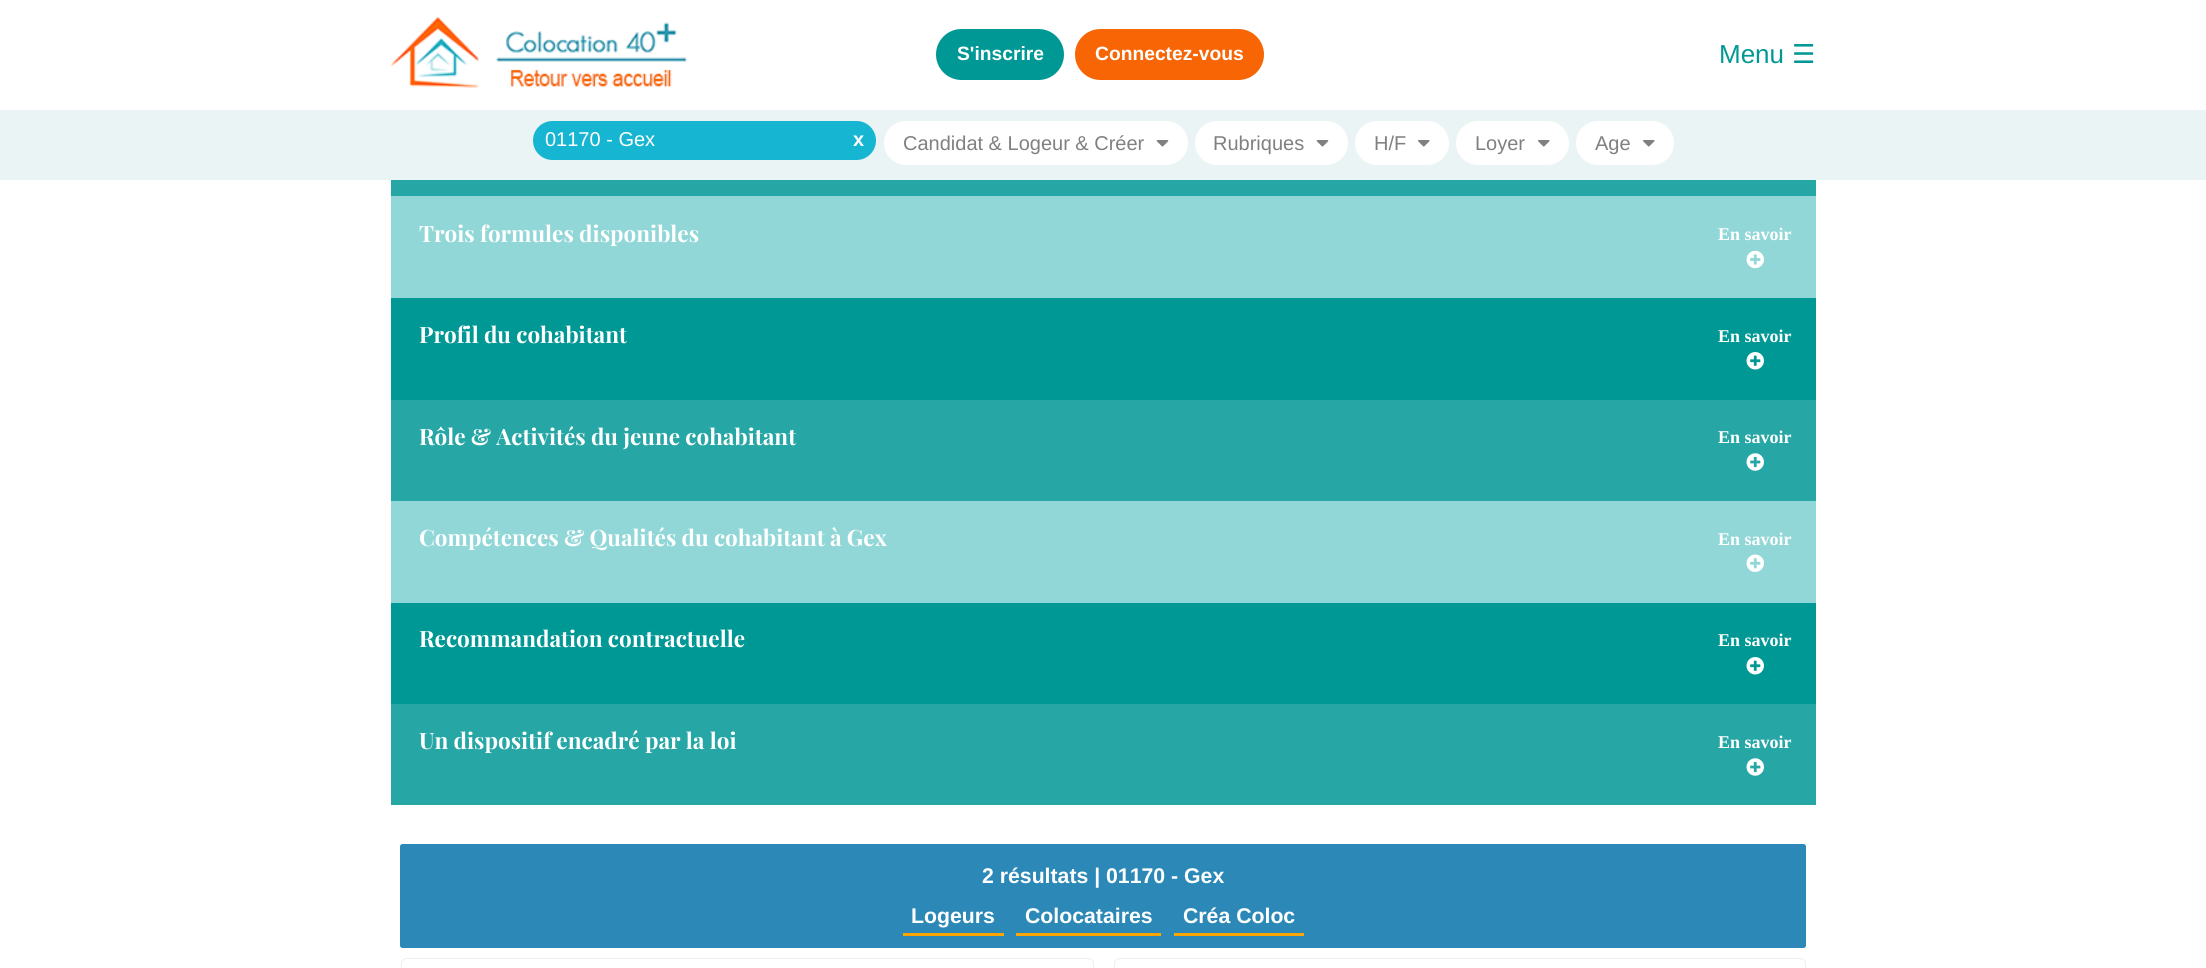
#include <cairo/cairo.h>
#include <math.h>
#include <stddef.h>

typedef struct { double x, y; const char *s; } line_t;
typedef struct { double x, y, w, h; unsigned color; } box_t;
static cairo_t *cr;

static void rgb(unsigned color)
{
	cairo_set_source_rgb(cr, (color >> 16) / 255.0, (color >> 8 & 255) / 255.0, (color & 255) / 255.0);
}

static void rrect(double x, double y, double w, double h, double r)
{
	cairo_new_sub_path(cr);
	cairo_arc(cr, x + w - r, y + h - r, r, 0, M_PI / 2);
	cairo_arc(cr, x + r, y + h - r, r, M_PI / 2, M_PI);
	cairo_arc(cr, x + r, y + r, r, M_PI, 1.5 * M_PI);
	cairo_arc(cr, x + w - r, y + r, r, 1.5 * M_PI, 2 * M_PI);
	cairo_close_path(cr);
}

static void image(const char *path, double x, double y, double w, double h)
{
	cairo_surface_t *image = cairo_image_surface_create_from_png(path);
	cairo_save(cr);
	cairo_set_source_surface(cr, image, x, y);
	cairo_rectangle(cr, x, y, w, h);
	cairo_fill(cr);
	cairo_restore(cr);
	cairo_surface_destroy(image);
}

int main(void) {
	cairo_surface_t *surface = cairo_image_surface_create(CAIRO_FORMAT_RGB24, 2206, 968);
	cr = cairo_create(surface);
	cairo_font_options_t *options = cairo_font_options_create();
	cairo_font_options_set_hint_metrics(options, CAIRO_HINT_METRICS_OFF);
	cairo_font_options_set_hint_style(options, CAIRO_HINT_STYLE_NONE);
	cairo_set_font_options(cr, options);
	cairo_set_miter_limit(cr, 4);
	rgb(0xffffff);
	cairo_paint(cr);
	image("img/1.png", 391, 17, 296, 71);
	rgb(0x009895);
	rrect(936, 29, 128, 51, 25.5);
	cairo_fill(cr);
	rgb(0xf76505);
	rrect(1075, 29, 189, 51, 25.5);
	cairo_fill(cr);
	rgb(0xebf4f4);
	cairo_rectangle(cr, 0, 110, 2206, 70);
	cairo_fill(cr);
	rgb(0x16b6d2);
	rrect(533, 121, 343, 39, 19.5);
	cairo_fill(cr);
	rgb(0xffffff);
	rrect(884, 121, 304, 44, 22);
	cairo_fill(cr);
	image("img/2.png", 1156, 140, 13, 7);
	rrect(1195, 121, 153, 44, 22);
	cairo_fill(cr);
	image("img/2.png", 1316, 140, 13, 7);
	rrect(1355, 121, 94, 44, 22);
	cairo_fill(cr);
	image("img/3.png", 1418, 140, 12, 7);
	rrect(1456, 121, 113, 44, 22);
	cairo_fill(cr);
	image("img/3.png", 1538, 140, 12, 7);
	rrect(1576, 121, 98, 44, 22);
	cairo_fill(cr);
	image("img/3.png", 1643, 140, 12, 7);
	rgb(0x26a6a5);
	cairo_rectangle(cr, 391, 180, 1425, 16);
	cairo_fill(cr);
	rgb(0x92d7d7);
	cairo_rectangle(cr, 391, 196, 1425, 102);
	cairo_fill(cr);
	image("img/4.png", 1746, 250, 18, 19);
	rgb(0x009895);
	cairo_rectangle(cr, 391, 298, 1425, 102);
	cairo_fill(cr);
	image("img/5.png", 1746, 352, 18, 18);
	rgb(0x26a6a5);
	cairo_rectangle(cr, 391, 400, 1425, 101);
	cairo_fill(cr);
	image("img/6.png", 1746, 453, 18, 18);
	rgb(0x92d7d7);
	cairo_rectangle(cr, 391, 501, 1425, 102);
	cairo_fill(cr);
	image("img/7.png", 1746, 554, 18, 18);
	rgb(0x009895);
	cairo_rectangle(cr, 391, 603, 1425, 101);
	cairo_fill(cr);
	image("img/5.png", 1746, 657, 18, 18);
	rgb(0x26a6a5);
	cairo_rectangle(cr, 391, 704, 1425, 101);
	cairo_fill(cr);
	image("img/6.png", 1746, 758, 18, 18);
	rgb(0x2c89b7);
	rrect(400, 844, 1406, 104, 2.5);
	cairo_fill(cr);
	{
		static const box_t items[] = {
			{903, 933, 101, 3, 0xffa500},
			{1016, 933, 145, 3, 0xffa500},
			{1174, 933, 130, 3, 0xffa500},
		};
		for (size_t i = 0; i < sizeof items / sizeof *items; i++) {
			rgb(items[i].color);
			cairo_rectangle(cr, items[i].x, items[i].y, items[i].w, items[i].h);
			cairo_fill(cr);
		}
	}
	rrect(401.5, 958.5, 692, 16, 5.5);
	rgb(0xeeeeee);
	cairo_set_line_width(cr, 1);
	cairo_stroke(cr);
	rrect(1114.5, 958.5, 691, 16, 5.5);
	cairo_stroke(cr);
	cairo_select_font_face(cr, "Liberation Sans", CAIRO_FONT_SLANT_NORMAL, CAIRO_FONT_WEIGHT_BOLD);
	cairo_set_font_size(cr, 19.25);
	rgb(0xffffff);
	cairo_move_to(cr, 957, 60);
	cairo_show_text(cr, "S'inscrire");
	cairo_move_to(cr, 1095, 60);
	cairo_show_text(cr, "Connectez-vous");
	cairo_select_font_face(cr, "Liberation Sans", CAIRO_FONT_SLANT_NORMAL, CAIRO_FONT_WEIGHT_NORMAL);
	cairo_set_font_size(cr, 26);
	rgb(0x009895);
	cairo_move_to(cr, 1719, 63);
	cairo_show_text(cr, "Menu");
	cairo_select_font_face(cr, "DejaVu Sans", CAIRO_FONT_SLANT_NORMAL, CAIRO_FONT_WEIGHT_NORMAL);
	cairo_move_to(cr, 1792, 63);
	cairo_show_text(cr, "☰");
	cairo_select_font_face(cr, "Liberation Sans", CAIRO_FONT_SLANT_NORMAL, CAIRO_FONT_WEIGHT_NORMAL);
	cairo_set_font_size(cr, 20);
	rgb(0xffffff);
	cairo_move_to(cr, 545, 146);
	cairo_show_text(cr, "01170 - Gex");
	cairo_select_font_face(cr, "Liberation Sans", CAIRO_FONT_SLANT_NORMAL, CAIRO_FONT_WEIGHT_BOLD);
	cairo_move_to(cr, 853, 146);
	cairo_show_text(cr, "x");
	cairo_select_font_face(cr, "Liberation Sans", CAIRO_FONT_SLANT_NORMAL, CAIRO_FONT_WEIGHT_NORMAL);
	rgb(0x808080);
	{
		static const line_t items[] = {
			{903, 150, "Candidat & Logeur & Créer"},
			{1213, 150, "Rubriques"},
			{1374, 150, "H/F"},
			{1475, 150, "Loyer"},
			{1595, 150, "Age"},
		};
		for (size_t i = 0; i < sizeof items / sizeof *items; i++) {
			cairo_move_to(cr, items[i].x, items[i].y);
			cairo_show_text(cr, items[i].s);
		}
	}
	cairo_select_font_face(cr, "Playfair Display", CAIRO_FONT_SLANT_NORMAL, CAIRO_FONT_WEIGHT_BOLD);
	cairo_set_font_size(cr, 22.5);
	rgb(0xffffff);
	cairo_move_to(cr, 419, 242);
	cairo_show_text(cr, "Trois formules disponibles");
	cairo_select_font_face(cr, "Liberation Serif", CAIRO_FONT_SLANT_NORMAL, CAIRO_FONT_WEIGHT_BOLD);
	cairo_set_font_size(cr, 18);
	cairo_move_to(cr, 1718, 240);
	cairo_show_text(cr, "En savoir");
	cairo_select_font_face(cr, "Playfair Display", CAIRO_FONT_SLANT_NORMAL, CAIRO_FONT_WEIGHT_BOLD);
	cairo_set_font_size(cr, 22.5);
	cairo_move_to(cr, 419, 343);
	cairo_show_text(cr, "Profil du cohabitant");
	cairo_select_font_face(cr, "Liberation Serif", CAIRO_FONT_SLANT_NORMAL, CAIRO_FONT_WEIGHT_BOLD);
	cairo_set_font_size(cr, 18);
	cairo_move_to(cr, 1718, 342);
	cairo_show_text(cr, "En savoir");
	cairo_select_font_face(cr, "Playfair Display", CAIRO_FONT_SLANT_NORMAL, CAIRO_FONT_WEIGHT_BOLD);
	cairo_set_font_size(cr, 22.5);
	cairo_move_to(cr, 419, 445);
	cairo_show_text(cr, "Rôle & Activités du jeune cohabitant");
	cairo_select_font_face(cr, "Liberation Serif", CAIRO_FONT_SLANT_NORMAL, CAIRO_FONT_WEIGHT_BOLD);
	cairo_set_font_size(cr, 18);
	cairo_move_to(cr, 1718, 443);
	cairo_show_text(cr, "En savoir");
	cairo_select_font_face(cr, "Playfair Display", CAIRO_FONT_SLANT_NORMAL, CAIRO_FONT_WEIGHT_BOLD);
	cairo_set_font_size(cr, 22.5);
	cairo_move_to(cr, 419, 546);
	cairo_show_text(cr, "Compétences & Qualités du cohabitant à Gex");
	cairo_select_font_face(cr, "Liberation Serif", CAIRO_FONT_SLANT_NORMAL, CAIRO_FONT_WEIGHT_BOLD);
	cairo_set_font_size(cr, 18);
	cairo_move_to(cr, 1718, 545);
	cairo_show_text(cr, "En savoir");
	cairo_select_font_face(cr, "Playfair Display", CAIRO_FONT_SLANT_NORMAL, CAIRO_FONT_WEIGHT_BOLD);
	cairo_set_font_size(cr, 22.5);
	cairo_move_to(cr, 419, 647);
	cairo_show_text(cr, "Recommandation contractuelle");
	cairo_select_font_face(cr, "Liberation Serif", CAIRO_FONT_SLANT_NORMAL, CAIRO_FONT_WEIGHT_BOLD);
	cairo_set_font_size(cr, 18);
	cairo_move_to(cr, 1718, 646);
	cairo_show_text(cr, "En savoir");
	cairo_select_font_face(cr, "Playfair Display", CAIRO_FONT_SLANT_NORMAL, CAIRO_FONT_WEIGHT_BOLD);
	cairo_set_font_size(cr, 22.5);
	cairo_move_to(cr, 419, 749);
	cairo_show_text(cr, "Un dispositif encadré par la loi");
	cairo_select_font_face(cr, "Liberation Serif", CAIRO_FONT_SLANT_NORMAL, CAIRO_FONT_WEIGHT_BOLD);
	cairo_set_font_size(cr, 18);
	cairo_move_to(cr, 1718, 748);
	cairo_show_text(cr, "En savoir");
	cairo_select_font_face(cr, "Liberation Sans", CAIRO_FONT_SLANT_NORMAL, CAIRO_FONT_WEIGHT_BOLD);
	cairo_set_font_size(cr, 21.25);
	{
		static const line_t items[] = {
			{982, 883, "2 résultats | 01170 - Gex"},
			{911, 923, "Logeurs"},
			{1025, 923, "Colocataires"},
			{1183, 923, "Créa Coloc"},
		};
		for (size_t i = 0; i < sizeof items / sizeof *items; i++) {
			cairo_move_to(cr, items[i].x, items[i].y);
			cairo_show_text(cr, items[i].s);
		}
	}
	cairo_surface_write_to_png(surface, "page.png");
	cairo_font_options_destroy(options);
	cairo_destroy(cr);
	cairo_surface_destroy(surface);
	return 0;
}
